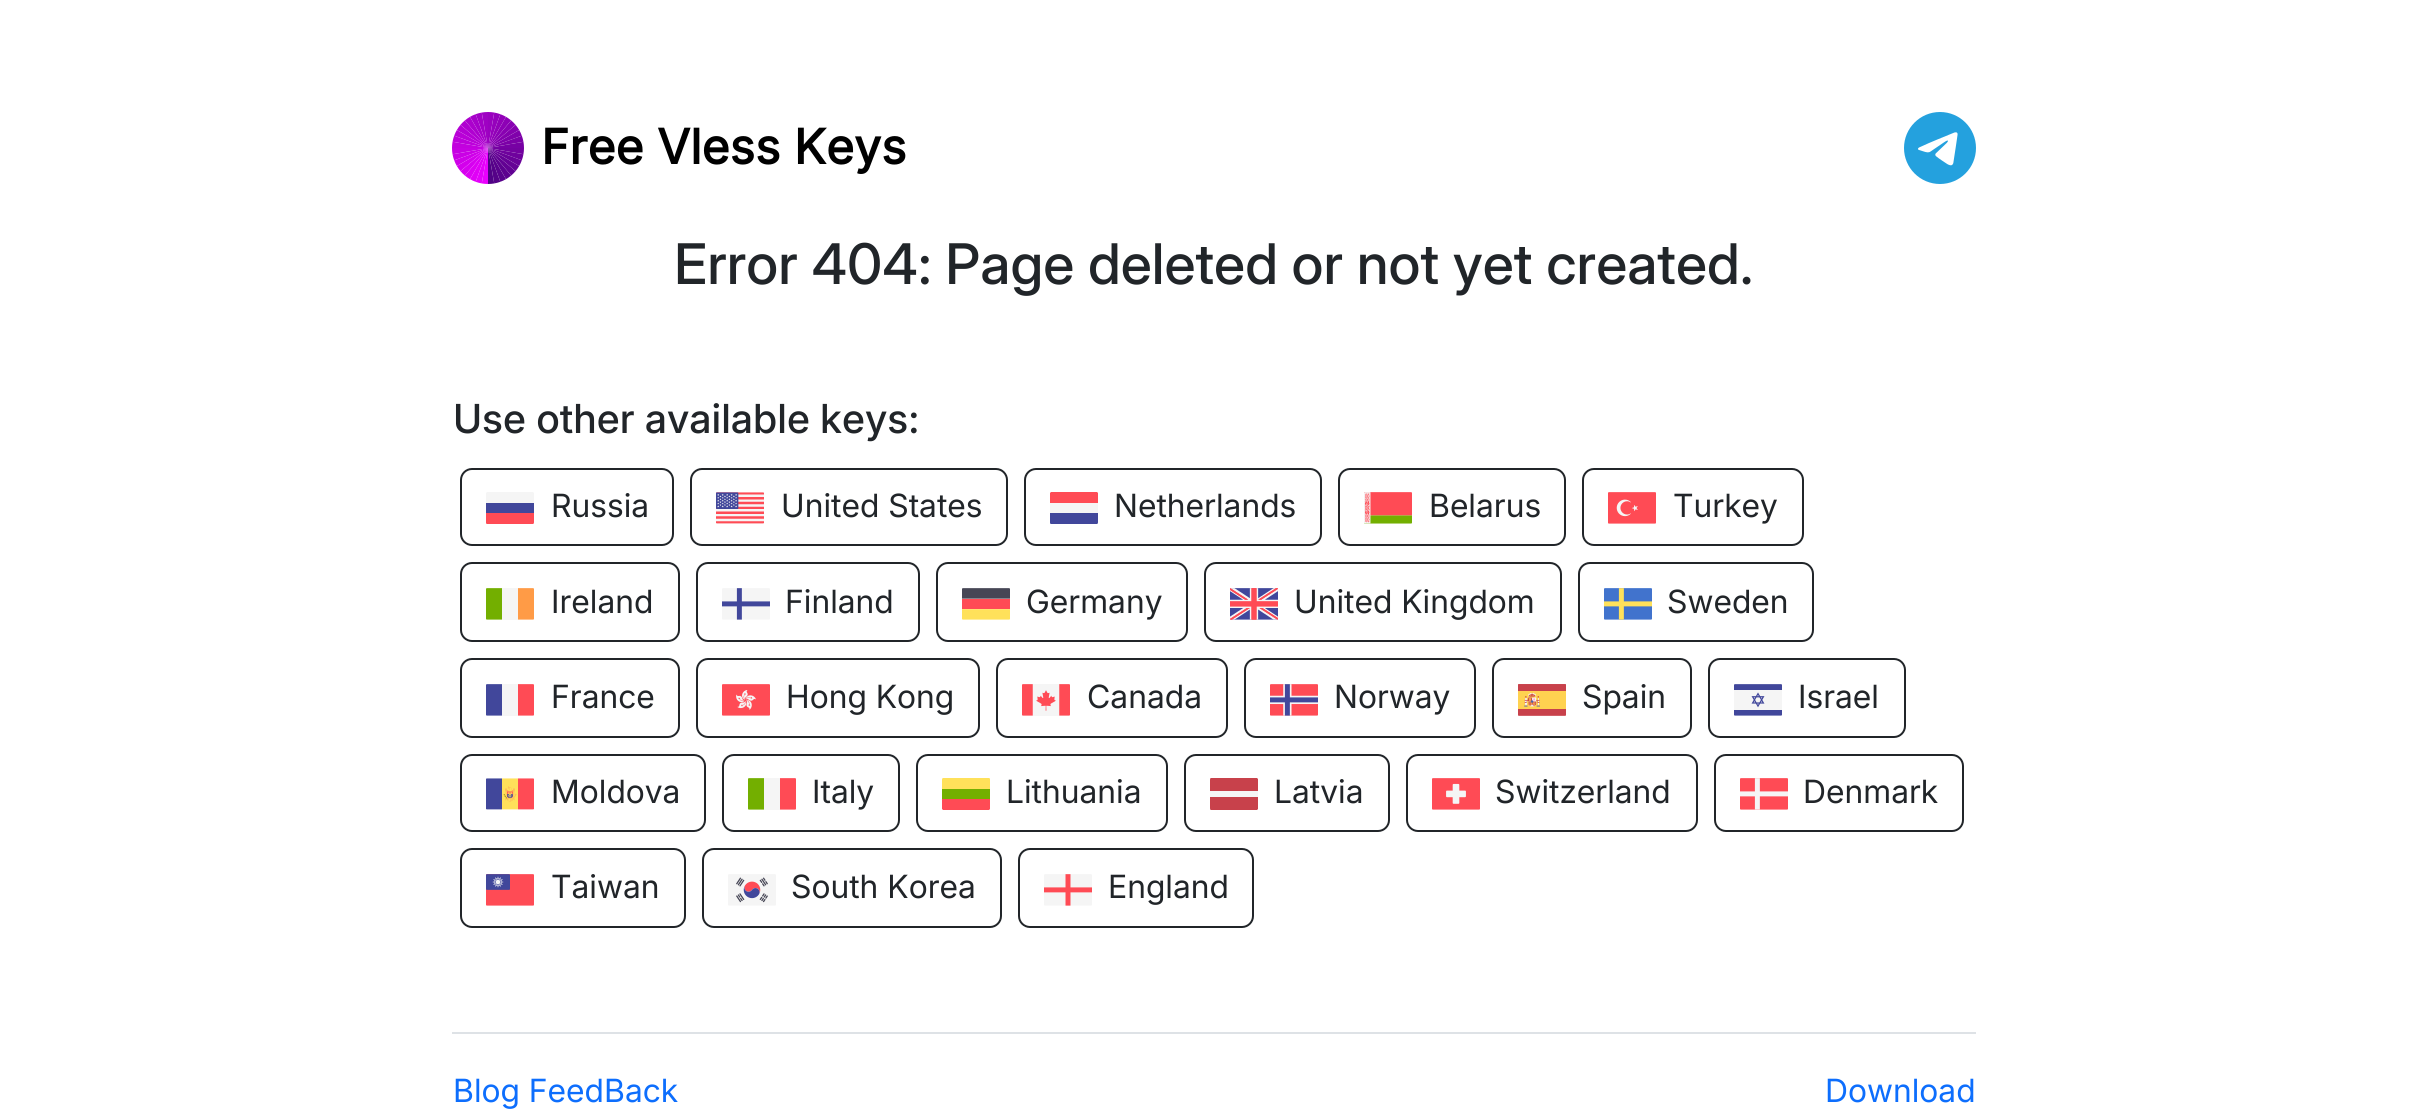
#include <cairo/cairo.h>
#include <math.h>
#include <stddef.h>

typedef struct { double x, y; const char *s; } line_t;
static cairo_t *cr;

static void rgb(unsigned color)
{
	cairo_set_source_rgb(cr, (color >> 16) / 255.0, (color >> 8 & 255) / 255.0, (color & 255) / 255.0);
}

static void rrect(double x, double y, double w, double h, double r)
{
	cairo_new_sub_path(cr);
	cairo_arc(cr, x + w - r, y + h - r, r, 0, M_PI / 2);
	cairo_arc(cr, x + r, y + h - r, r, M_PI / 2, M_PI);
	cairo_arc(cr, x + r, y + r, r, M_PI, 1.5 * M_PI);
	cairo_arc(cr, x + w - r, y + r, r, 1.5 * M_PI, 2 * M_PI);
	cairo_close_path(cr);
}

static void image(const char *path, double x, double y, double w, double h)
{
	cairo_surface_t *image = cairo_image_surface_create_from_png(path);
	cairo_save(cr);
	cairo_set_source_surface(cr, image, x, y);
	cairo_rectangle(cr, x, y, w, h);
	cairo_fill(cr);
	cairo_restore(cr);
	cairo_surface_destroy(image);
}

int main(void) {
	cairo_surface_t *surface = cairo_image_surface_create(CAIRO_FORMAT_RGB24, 2427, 1118);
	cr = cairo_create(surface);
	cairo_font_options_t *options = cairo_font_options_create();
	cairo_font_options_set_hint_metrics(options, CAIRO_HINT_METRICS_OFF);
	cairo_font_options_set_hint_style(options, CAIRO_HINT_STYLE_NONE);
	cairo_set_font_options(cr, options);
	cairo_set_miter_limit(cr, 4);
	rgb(0xffffff);
	cairo_paint(cr);
	image("img/1.png", 452, 112, 72, 72);
	rgb(0x24a1de);
	cairo_arc(cr, 1940, 148, 36, 0, 2 * M_PI);
	cairo_fill(cr);
	image("img/2.png", 1918, 132, 40, 34);
	rrect(461, 469, 212, 76, 11);
	rgb(0x212529);
	cairo_stroke(cr);
	rgb(0xf5f5f5);
	cairo_new_path(cr);
	cairo_move_to(cr, 534, 503);
	cairo_line_to(cr, 486, 503);
	cairo_line_to(cr, 486, 493);
	cairo_line_to(cr, 487, 492);
	cairo_line_to(cr, 533, 492);
	cairo_line_to(cr, 534, 493);
	cairo_close_path(cr);
	cairo_fill(cr);
	rgb(0x41479b);
	cairo_rectangle(cr, 486, 503, 48, 10);
	cairo_fill(cr);
	cairo_save(cr);
	cairo_rectangle(cr, 486, 492, 48, 32);
	cairo_clip(cr);
	rgb(0xff4b55);
	cairo_new_path(cr);
	cairo_move_to(cr, 533, 524);
	cairo_line_to(cr, 502, 524);
	cairo_curve_to(cr, 483, 524, 486, 528, 486, 513);
	cairo_line_to(cr, 534, 513);
	cairo_curve_to(cr, 534, 515, 535, 524, 533, 524);
	cairo_close_path(cr);
	cairo_fill(cr);
	cairo_restore(cr);
	rrect(691, 469, 316, 76, 11);
	rgb(0x212529);
	cairo_stroke(cr);
	image("img/3.png", 716, 492, 48, 32);
	rrect(1025, 469, 296, 76, 11);
	cairo_stroke(cr);
	rgb(0xff4b55);
	cairo_new_path(cr);
	cairo_move_to(cr, 1098, 503);
	cairo_line_to(cr, 1050, 503);
	cairo_line_to(cr, 1050, 493);
	cairo_line_to(cr, 1051, 492);
	cairo_line_to(cr, 1097, 492);
	cairo_line_to(cr, 1098, 493);
	cairo_close_path(cr);
	cairo_fill(cr);
	rgb(0xf5f5f5);
	cairo_rectangle(cr, 1050, 503, 48, 10);
	cairo_fill(cr);
	cairo_save(cr);
	cairo_rectangle(cr, 1050, 492, 48, 32);
	cairo_clip(cr);
	rgb(0x41479b);
	cairo_new_path(cr);
	cairo_move_to(cr, 1097, 524);
	cairo_line_to(cr, 1066, 524);
	cairo_curve_to(cr, 1047, 524, 1050, 528, 1050, 513);
	cairo_line_to(cr, 1098, 513);
	cairo_curve_to(cr, 1098, 515, 1099, 524, 1097, 524);
	cairo_close_path(cr);
	cairo_fill(cr);
	cairo_restore(cr);
	rrect(1339, 469, 226, 76, 11);
	rgb(0x212529);
	cairo_stroke(cr);
	image("img/4.png", 1364, 492, 48, 32);
	rrect(1583, 469, 220, 76, 11);
	cairo_stroke(cr);
	image("img/5.png", 1608, 492, 48, 32);
	rrect(461, 563, 218, 78, 11);
	cairo_stroke(cr);
	image("img/6.png", 486, 588, 48, 32);
	rrect(697, 563, 222, 78, 11);
	cairo_stroke(cr);
	image("img/7.png", 722, 588, 48, 32);
	rrect(937, 563, 250, 78, 11);
	cairo_stroke(cr);
	image("img/8.png", 962, 588, 48, 32);
	rrect(1205, 563, 356, 78, 11);
	cairo_stroke(cr);
	image("img/9.png", 1230, 588, 48, 32);
	rrect(1579, 563, 234, 78, 11);
	cairo_stroke(cr);
	image("img/10.png", 1604, 588, 48, 32);
	rrect(461, 659, 218, 78, 11);
	cairo_stroke(cr);
	image("img/11.png", 486, 684, 48, 32);
	rrect(697, 659, 282, 78, 11);
	cairo_stroke(cr);
	image("img/12.png", 722, 684, 48, 32);
	rrect(997, 659, 230, 78, 11);
	cairo_stroke(cr);
	image("img/13.png", 1022, 684, 48, 32);
	rrect(1245, 659, 230, 78, 11);
	cairo_stroke(cr);
	image("img/14.png", 1270, 684, 48, 32);
	rrect(1493, 659, 198, 78, 11);
	cairo_stroke(cr);
	image("img/15.png", 1518, 684, 48, 32);
	rrect(1709, 659, 196, 78, 11);
	cairo_stroke(cr);
	image("img/16.png", 1734, 684, 48, 32);
	rrect(461, 755, 244, 76, 11);
	cairo_stroke(cr);
	image("img/17.png", 486, 778, 48, 32);
	rrect(723, 755, 176, 76, 11);
	cairo_stroke(cr);
	image("img/18.png", 748, 778, 48, 32);
	rrect(917, 755, 250, 76, 11);
	cairo_stroke(cr);
	cairo_save(cr);
	cairo_rectangle(cr, 942, 778, 48, 32);
	cairo_clip(cr);
	rgb(0xffe15a);
	cairo_new_path(cr);
	cairo_move_to(cr, 943, 778);
	cairo_line_to(cr, 974, 778);
	cairo_curve_to(cr, 993, 778, 990, 774, 990, 789);
	cairo_line_to(cr, 942, 789);
	cairo_curve_to(cr, 942, 787, 941, 778, 943, 778);
	cairo_close_path(cr);
	cairo_fill(cr);
	cairo_restore(cr);
	rgb(0x73af00);
	cairo_rectangle(cr, 942, 789, 48, 10);
	cairo_fill(cr);
	rgb(0xff4b55);
	cairo_new_path(cr);
	cairo_move_to(cr, 942, 799);
	cairo_line_to(cr, 990, 799);
	cairo_line_to(cr, 990, 809);
	cairo_line_to(cr, 989, 810);
	cairo_line_to(cr, 943, 810);
	cairo_line_to(cr, 942, 809);
	cairo_close_path(cr);
	cairo_fill(cr);
	rrect(1185, 755, 204, 76, 11);
	rgb(0x212529);
	cairo_stroke(cr);
	cairo_save(cr);
	cairo_rectangle(cr, 1210, 778, 48, 32);
	cairo_clip(cr);
	rgb(0xc8414b);
	cairo_new_path(cr);
	cairo_move_to(cr, 1257, 810);
	cairo_line_to(cr, 1219, 810);
	cairo_curve_to(cr, 1209, 810, 1210, 812, 1210, 804);
	cairo_line_to(cr, 1210, 784);
	cairo_curve_to(cr, 1210, 776, 1209, 778, 1219, 778);
	cairo_line_to(cr, 1257, 778);
	cairo_line_to(cr, 1258, 779);
	cairo_line_to(cr, 1258, 809);
	cairo_close_path(cr);
	cairo_fill(cr);
	cairo_restore(cr);
	rgb(0xf5f5f5);
	cairo_rectangle(cr, 1210, 791, 48, 6);
	cairo_fill(cr);
	rrect(1407, 755, 290, 76, 11);
	rgb(0x212529);
	cairo_stroke(cr);
	image("img/19.png", 1432, 778, 48, 32);
	rrect(1715, 755, 248, 76, 11);
	cairo_stroke(cr);
	image("img/20.png", 1740, 778, 48, 32);
	rrect(461, 849, 224, 78, 11);
	cairo_stroke(cr);
	image("img/21.png", 486, 874, 48, 32);
	rrect(703, 849, 298, 78, 11);
	cairo_stroke(cr);
	image("img/22.png", 728, 874, 48, 32);
	rrect(1019, 849, 234, 78, 11);
	cairo_stroke(cr);
	image("img/23.png", 1044, 874, 48, 32);
	rgb(0xdee2e6);
	cairo_rectangle(cr, 452, 1032, 1524, 2);
	cairo_fill(cr);
	cairo_select_font_face(cr, "Inter", CAIRO_FONT_SLANT_NORMAL, CAIRO_FONT_WEIGHT_BOLD);
	cairo_set_font_size(cr, 48);
	rgb(0x000000);
	cairo_move_to(cr, 541, 164);
	cairo_show_text(cr, "Free Vless Keys");
	cairo_select_font_face(cr, "Inter Medium", CAIRO_FONT_SLANT_NORMAL, CAIRO_FONT_WEIGHT_NORMAL);
	cairo_set_font_size(cr, 56);
	rgb(0x212529);
	cairo_move_to(cr, 674, 284);
	cairo_show_text(cr, "Error 404: Page deleted or not yet created.");
	cairo_select_font_face(cr, "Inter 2 Medium", CAIRO_FONT_SLANT_NORMAL, CAIRO_FONT_WEIGHT_NORMAL);
	cairo_set_font_size(cr, 40);
	cairo_move_to(cr, 453, 433);
	cairo_show_text(cr, "Use other available keys:");
	cairo_select_font_face(cr, "Inter", CAIRO_FONT_SLANT_NORMAL, CAIRO_FONT_WEIGHT_NORMAL);
	cairo_set_font_size(cr, 32);
	{
		static const line_t items[] = {
			{551, 517, "Russia"},
			{781, 517, "United States"},
			{1114, 517, "Netherlands"},
			{1429, 517, "Belarus"},
			{1673, 517, "Turkey"},
			{551, 613, "Ireland"},
			{785, 613, "Finland"},
			{1026, 613, "Germany"},
			{1294, 613, "United Kingdom"},
			{1667, 613, "Sweden"},
			{551, 708, "France"},
			{786, 708, "Hong Kong"},
			{1087, 708, "Canada"},
			{1334, 708, "Norway"},
			{1582, 708, "Spain"},
			{1798, 708, "Israel"},
			{551, 803, "Moldova"},
			{812, 803, "Italy"},
			{1006, 803, "Lithuania"},
			{1274, 803, "Latvia"},
			{1495, 803, "Switzerland"},
			{1803, 803, "Denmark"},
			{551, 898, "Taiwan"},
			{791, 898, "South Korea"},
			{1108, 898, "England"},
		};
		for (size_t i = 0; i < sizeof items / sizeof *items; i++) {
			cairo_move_to(cr, items[i].x, items[i].y);
			cairo_show_text(cr, items[i].s);
		}
	}
	rgb(0x0d6efd);
	cairo_move_to(cr, 453, 1102);
	cairo_show_text(cr, "Blog FeedBack");
	cairo_move_to(cr, 1825, 1102);
	cairo_show_text(cr, "Download");
	cairo_surface_write_to_png(surface, "page.png");
	cairo_font_options_destroy(options);
	cairo_destroy(cr);
	cairo_surface_destroy(surface);
	return 0;
}
